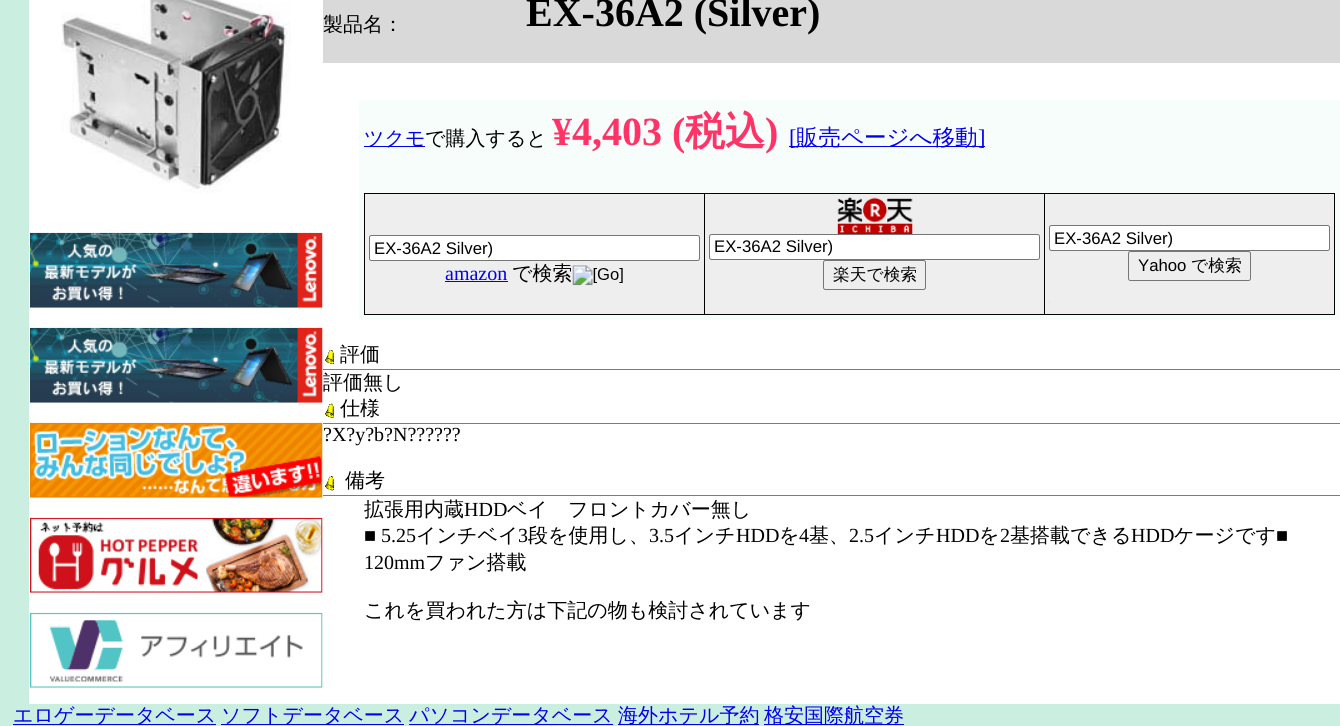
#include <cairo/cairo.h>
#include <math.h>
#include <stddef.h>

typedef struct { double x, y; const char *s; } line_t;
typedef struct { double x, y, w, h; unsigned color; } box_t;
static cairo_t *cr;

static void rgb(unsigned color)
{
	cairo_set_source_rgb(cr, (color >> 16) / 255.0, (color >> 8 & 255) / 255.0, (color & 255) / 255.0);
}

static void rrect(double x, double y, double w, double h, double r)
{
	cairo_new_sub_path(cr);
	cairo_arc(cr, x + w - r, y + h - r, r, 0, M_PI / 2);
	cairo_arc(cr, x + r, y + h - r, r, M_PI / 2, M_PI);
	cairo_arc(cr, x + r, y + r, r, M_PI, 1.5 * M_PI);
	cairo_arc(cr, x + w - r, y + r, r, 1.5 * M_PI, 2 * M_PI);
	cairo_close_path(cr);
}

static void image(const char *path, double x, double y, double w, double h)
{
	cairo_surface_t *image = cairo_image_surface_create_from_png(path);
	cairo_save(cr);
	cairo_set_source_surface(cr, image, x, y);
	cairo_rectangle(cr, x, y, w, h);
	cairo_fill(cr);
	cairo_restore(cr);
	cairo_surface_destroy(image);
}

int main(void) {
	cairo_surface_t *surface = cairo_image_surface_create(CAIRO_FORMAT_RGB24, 1340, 726);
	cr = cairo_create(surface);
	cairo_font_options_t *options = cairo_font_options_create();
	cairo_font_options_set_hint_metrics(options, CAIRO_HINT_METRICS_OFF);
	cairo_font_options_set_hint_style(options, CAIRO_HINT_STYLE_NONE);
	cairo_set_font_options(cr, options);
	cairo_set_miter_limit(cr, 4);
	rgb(0xffffff);
	cairo_paint(cr);
	rgb(0xcaeee0);
	cairo_rectangle(cr, 0, 0, 29, 704);
	cairo_fill(cr);
	image("img/1.png", 61, 0, 230, 193);
	image("img/2.png", 30, 232, 293, 76);
	image("img/4.png", 30, 422, 293, 76);
	image("img/5.png", 30, 517, 293, 76);
	image("img/6.png", 30, 612, 293, 76);
	{
		static const box_t items[] = {
			{323, 0, 1017, 63, 0xd9d9d9},
			{359, 100, 981, 220, 0xf7fdfb},
			{364, 146, 61, 1, 0x0000ee},
			{789, 146, 196, 1, 0x0000ee},
			{364, 193, 971, 122, 0x000000},
			{365, 194, 339, 120, 0xeeeeee},
		};
		for (size_t i = 0; i < sizeof items / sizeof *items; i++) {
			rgb(items[i].color);
			cairo_rectangle(cr, items[i].x, items[i].y, items[i].w, items[i].h);
			cairo_fill(cr);
		}
	}
	rgb(0xffffff);
	rrect(369.5, 235.5, 330, 25, 2);
	cairo_fill_preserve(cr);
	rgb(0x767676);
	cairo_set_line_width(cr, 1);
	cairo_stroke(cr);
	rgb(0x0000ee);
	cairo_rectangle(cr, 445, 281, 63, 1);
	cairo_fill(cr);
	image("img/7.png", 572, 265, 51, 21);
	rgb(0xeeeeee);
	cairo_rectangle(cr, 705, 194, 339, 120);
	cairo_fill(cr);
	image("img/8.png", 837, 197, 76, 37);
	rgb(0xffffff);
	rrect(709.5, 234.5, 330, 25, 2);
	cairo_fill_preserve(cr);
	rgb(0x767676);
	cairo_stroke(cr);
	rrect(823.5, 260.5, 102, 29, 2);
	cairo_stroke(cr);
	rgb(0xeeeeee);
	cairo_rectangle(cr, 1045, 194, 289, 120);
	cairo_fill(cr);
	rgb(0xffffff);
	rrect(1049.5, 225.5, 280, 25, 2);
	cairo_fill_preserve(cr);
	rgb(0x767676);
	cairo_stroke(cr);
	rrect(1128.5, 251.5, 122, 29, 2);
	cairo_stroke(cr);
	image("img/9.png", 1049, 301, 1, 2);
	image("img/10.png", 325, 350, 9, 14);
	rgb(0x7c7c7c);
	cairo_rectangle(cr, 323, 369, 1017, 1);
	cairo_fill(cr);
	image("img/11.png", 325, 403, 9, 15);
	cairo_rectangle(cr, 323, 423, 1017, 1);
	cairo_fill(cr);
	image("img/12.png", 325, 476, 9, 15);
	{
		static const box_t items[] = {
			{323, 495, 1017, 1, 0x7c7c7c},
			{0, 704, 1340, 22, 0xcaeee0},
			{13, 724, 203, 1, 0x0000ee},
			{221, 724, 183, 1, 0x0000ee},
			{409, 724, 204, 1, 0x0000ee},
			{618, 724, 141, 1, 0x0000ee},
			{764, 724, 140, 1, 0x0000ee},
		};
		for (size_t i = 0; i < sizeof items / sizeof *items; i++) {
			rgb(items[i].color);
			cairo_rectangle(cr, items[i].x, items[i].y, items[i].w, items[i].h);
			cairo_fill(cr);
		}
	}
	cairo_select_font_face(cr, "WenQuanYi Zen Hei Medium", CAIRO_FONT_SLANT_NORMAL, CAIRO_FONT_WEIGHT_NORMAL);
	cairo_set_font_size(cr, 20);
	rgb(0x000000);
	cairo_move_to(cr, 323, 31);
	cairo_show_text(cr, "製品名：");
	cairo_select_font_face(cr, "Liberation Serif", CAIRO_FONT_SLANT_NORMAL, CAIRO_FONT_WEIGHT_BOLD);
	cairo_set_font_size(cr, 40);
	cairo_move_to(cr, 526, 26);
	cairo_show_text(cr, "EX-36A2 (Silver)");
	cairo_select_font_face(cr, "WenQuanYi Zen Hei Medium", CAIRO_FONT_SLANT_NORMAL, CAIRO_FONT_WEIGHT_NORMAL);
	cairo_set_font_size(cr, 20);
	rgb(0x0000ee);
	cairo_move_to(cr, 364, 145);
	cairo_show_text(cr, "ツクモ");
	rgb(0x000000);
	cairo_move_to(cr, 425, 145);
	cairo_show_text(cr, "で購入すると");
	cairo_select_font_face(cr, "Liberation Serif", CAIRO_FONT_SLANT_NORMAL, CAIRO_FONT_WEIGHT_BOLD);
	cairo_set_font_size(cr, 40);
	rgb(0xff3366);
	cairo_move_to(cr, 552, 145);
	cairo_show_text(cr, "¥4,403 (");
	cairo_select_font_face(cr, "WenQuanYi Zen Hei", CAIRO_FONT_SLANT_NORMAL, CAIRO_FONT_WEIGHT_BOLD);
	cairo_move_to(cr, 685, 145);
	cairo_show_text(cr, "税込");
	cairo_select_font_face(cr, "Liberation Serif", CAIRO_FONT_SLANT_NORMAL, CAIRO_FONT_WEIGHT_BOLD);
	cairo_move_to(cr, 765, 145);
	cairo_show_text(cr, ")");
	cairo_select_font_face(cr, "Liberation Serif", CAIRO_FONT_SLANT_NORMAL, CAIRO_FONT_WEIGHT_NORMAL);
	cairo_set_font_size(cr, 22.5);
	rgb(0x0000ee);
	cairo_move_to(cr, 789, 145);
	cairo_show_text(cr, "[");
	cairo_select_font_face(cr, "WenQuanYi Zen Hei Medium", CAIRO_FONT_SLANT_NORMAL, CAIRO_FONT_WEIGHT_NORMAL);
	cairo_move_to(cr, 796, 145);
	cairo_show_text(cr, "販売ページへ移動");
	cairo_select_font_face(cr, "Liberation Serif", CAIRO_FONT_SLANT_NORMAL, CAIRO_FONT_WEIGHT_NORMAL);
	cairo_move_to(cr, 978, 145);
	cairo_show_text(cr, "]");
	cairo_select_font_face(cr, "Liberation Sans", CAIRO_FONT_SLANT_NORMAL, CAIRO_FONT_WEIGHT_NORMAL);
	cairo_set_font_size(cr, 16.75);
	rgb(0x000000);
	cairo_move_to(cr, 374, 254);
	cairo_show_text(cr, "EX-36A2 Silver)");
	cairo_select_font_face(cr, "Liberation Serif", CAIRO_FONT_SLANT_NORMAL, CAIRO_FONT_WEIGHT_NORMAL);
	cairo_set_font_size(cr, 20);
	rgb(0x0000ee);
	cairo_move_to(cr, 445, 280);
	cairo_show_text(cr, "amazon");
	cairo_select_font_face(cr, "WenQuanYi Zen Hei Medium", CAIRO_FONT_SLANT_NORMAL, CAIRO_FONT_WEIGHT_NORMAL);
	rgb(0x000000);
	cairo_move_to(cr, 512, 280);
	cairo_show_text(cr, "で検索");
	cairo_select_font_face(cr, "Liberation Sans", CAIRO_FONT_SLANT_NORMAL, CAIRO_FONT_WEIGHT_NORMAL);
	cairo_set_font_size(cr, 16.75);
	cairo_move_to(cr, 714, 252);
	cairo_show_text(cr, "EX-36A2 Silver)");
	cairo_select_font_face(cr, "WenQuanYi Zen Hei Medium", CAIRO_FONT_SLANT_NORMAL, CAIRO_FONT_WEIGHT_NORMAL);
	cairo_move_to(cr, 833, 280);
	cairo_show_text(cr, "楽天で検索");
	cairo_select_font_face(cr, "Liberation Sans", CAIRO_FONT_SLANT_NORMAL, CAIRO_FONT_WEIGHT_NORMAL);
	cairo_move_to(cr, 1054, 244);
	cairo_show_text(cr, "EX-36A2 Silver)");
	cairo_move_to(cr, 1138, 271);
	cairo_show_text(cr, "Yahoo");
	cairo_select_font_face(cr, "WenQuanYi Zen Hei Medium", CAIRO_FONT_SLANT_NORMAL, CAIRO_FONT_WEIGHT_NORMAL);
	cairo_move_to(cr, 1191, 271);
	cairo_show_text(cr, "で検索");
	cairo_set_font_size(cr, 20);
	cairo_move_to(cr, 340, 361);
	cairo_show_text(cr, "評価");
	cairo_move_to(cr, 323, 389);
	cairo_show_text(cr, "評価無し");
	image("img/3.png", 30, 327, 293, 76);
	cairo_move_to(cr, 340, 415);
	cairo_show_text(cr, "仕様");
	cairo_select_font_face(cr, "Liberation Serif", CAIRO_FONT_SLANT_NORMAL, CAIRO_FONT_WEIGHT_NORMAL);
	cairo_move_to(cr, 323, 441);
	cairo_show_text(cr, "?X?y?b?N?\077?\077?\077");
	cairo_select_font_face(cr, "WenQuanYi Zen Hei Medium", CAIRO_FONT_SLANT_NORMAL, CAIRO_FONT_WEIGHT_NORMAL);
	cairo_move_to(cr, 345, 487);
	cairo_show_text(cr, "備考");
	cairo_move_to(cr, 364, 516);
	cairo_show_text(cr, "拡張用内蔵");
	cairo_select_font_face(cr, "Liberation Serif", CAIRO_FONT_SLANT_NORMAL, CAIRO_FONT_WEIGHT_NORMAL);
	cairo_move_to(cr, 464, 516);
	cairo_show_text(cr, "HDD");
	cairo_select_font_face(cr, "WenQuanYi Zen Hei Medium", CAIRO_FONT_SLANT_NORMAL, CAIRO_FONT_WEIGHT_NORMAL);
	cairo_move_to(cr, 507, 516);
	cairo_show_text(cr, "ベイ　フロントカバー無し");
	cairo_select_font_face(cr, "Liberation Serif", CAIRO_FONT_SLANT_NORMAL, CAIRO_FONT_WEIGHT_NORMAL);
	cairo_move_to(cr, 364, 542);
	cairo_show_text(cr, "■ 5.25");
	cairo_select_font_face(cr, "WenQuanYi Zen Hei Medium", CAIRO_FONT_SLANT_NORMAL, CAIRO_FONT_WEIGHT_NORMAL);
	cairo_move_to(cr, 416, 542);
	cairo_show_text(cr, "インチベイ");
	cairo_select_font_face(cr, "Liberation Serif", CAIRO_FONT_SLANT_NORMAL, CAIRO_FONT_WEIGHT_NORMAL);
	cairo_move_to(cr, 518, 542);
	cairo_show_text(cr, "3");
	cairo_select_font_face(cr, "WenQuanYi Zen Hei Medium", CAIRO_FONT_SLANT_NORMAL, CAIRO_FONT_WEIGHT_NORMAL);
	cairo_move_to(cr, 528, 542);
	cairo_show_text(cr, "段を使用し、");
	cairo_select_font_face(cr, "Liberation Serif", CAIRO_FONT_SLANT_NORMAL, CAIRO_FONT_WEIGHT_NORMAL);
	cairo_move_to(cr, 649, 542);
	cairo_show_text(cr, "3.5");
	cairo_select_font_face(cr, "WenQuanYi Zen Hei Medium", CAIRO_FONT_SLANT_NORMAL, CAIRO_FONT_WEIGHT_NORMAL);
	cairo_move_to(cr, 674, 542);
	cairo_show_text(cr, "インチ");
	cairo_select_font_face(cr, "Liberation Serif", CAIRO_FONT_SLANT_NORMAL, CAIRO_FONT_WEIGHT_NORMAL);
	cairo_move_to(cr, 736, 542);
	cairo_show_text(cr, "HDD");
	cairo_select_font_face(cr, "WenQuanYi Zen Hei Medium", CAIRO_FONT_SLANT_NORMAL, CAIRO_FONT_WEIGHT_NORMAL);
	cairo_move_to(cr, 779, 542);
	cairo_show_text(cr, "を");
	cairo_select_font_face(cr, "Liberation Serif", CAIRO_FONT_SLANT_NORMAL, CAIRO_FONT_WEIGHT_NORMAL);
	cairo_move_to(cr, 799, 542);
	cairo_show_text(cr, "4");
	cairo_select_font_face(cr, "WenQuanYi Zen Hei Medium", CAIRO_FONT_SLANT_NORMAL, CAIRO_FONT_WEIGHT_NORMAL);
	cairo_move_to(cr, 809, 542);
	cairo_show_text(cr, "基、");
	cairo_select_font_face(cr, "Liberation Serif", CAIRO_FONT_SLANT_NORMAL, CAIRO_FONT_WEIGHT_NORMAL);
	cairo_move_to(cr, 849, 542);
	cairo_show_text(cr, "2.5");
	cairo_select_font_face(cr, "WenQuanYi Zen Hei Medium", CAIRO_FONT_SLANT_NORMAL, CAIRO_FONT_WEIGHT_NORMAL);
	cairo_move_to(cr, 874, 542);
	cairo_show_text(cr, "インチ");
	cairo_select_font_face(cr, "Liberation Serif", CAIRO_FONT_SLANT_NORMAL, CAIRO_FONT_WEIGHT_NORMAL);
	cairo_move_to(cr, 936, 542);
	cairo_show_text(cr, "HDD");
	cairo_select_font_face(cr, "WenQuanYi Zen Hei Medium", CAIRO_FONT_SLANT_NORMAL, CAIRO_FONT_WEIGHT_NORMAL);
	cairo_move_to(cr, 979, 542);
	cairo_show_text(cr, "を");
	cairo_select_font_face(cr, "Liberation Serif", CAIRO_FONT_SLANT_NORMAL, CAIRO_FONT_WEIGHT_NORMAL);
	cairo_move_to(cr, 1000, 542);
	cairo_show_text(cr, "2");
	cairo_select_font_face(cr, "WenQuanYi Zen Hei Medium", CAIRO_FONT_SLANT_NORMAL, CAIRO_FONT_WEIGHT_NORMAL);
	cairo_move_to(cr, 1010, 542);
	cairo_show_text(cr, "基搭載できる");
	cairo_select_font_face(cr, "Liberation Serif", CAIRO_FONT_SLANT_NORMAL, CAIRO_FONT_WEIGHT_NORMAL);
	cairo_move_to(cr, 1131, 542);
	cairo_show_text(cr, "HDD");
	cairo_select_font_face(cr, "WenQuanYi Zen Hei Medium", CAIRO_FONT_SLANT_NORMAL, CAIRO_FONT_WEIGHT_NORMAL);
	cairo_move_to(cr, 1174, 542);
	cairo_show_text(cr, "ケージです");
	cairo_select_font_face(cr, "Liberation Serif", CAIRO_FONT_SLANT_NORMAL, CAIRO_FONT_WEIGHT_NORMAL);
	cairo_move_to(cr, 1276, 542);
	cairo_show_text(cr, "■");
	cairo_move_to(cr, 364, 569);
	cairo_show_text(cr, "120mm");
	cairo_select_font_face(cr, "WenQuanYi Zen Hei Medium", CAIRO_FONT_SLANT_NORMAL, CAIRO_FONT_WEIGHT_NORMAL);
	cairo_move_to(cr, 425, 569);
	cairo_show_text(cr, "ファン搭載");
	cairo_move_to(cr, 364, 617);
	cairo_show_text(cr, "これを買われた方は下記の物も検討されています");
	rgb(0x0000ee);
	{
		static const line_t items[] = {
			{13, 722, "エロゲーデータベース"},
			{221, 722, "ソフトデータベース"},
			{409, 722, "パソコンデータベース"},
			{618, 722, "海外ホテル予約"},
			{764, 722, "格安国際航空券"},
		};
		for (size_t i = 0; i < sizeof items / sizeof *items; i++) {
			cairo_move_to(cr, items[i].x, items[i].y);
			cairo_show_text(cr, items[i].s);
		}
	}
	cairo_surface_write_to_png(surface, "page.png");
	cairo_font_options_destroy(options);
	cairo_destroy(cr);
	cairo_surface_destroy(surface);
	return 0;
}
